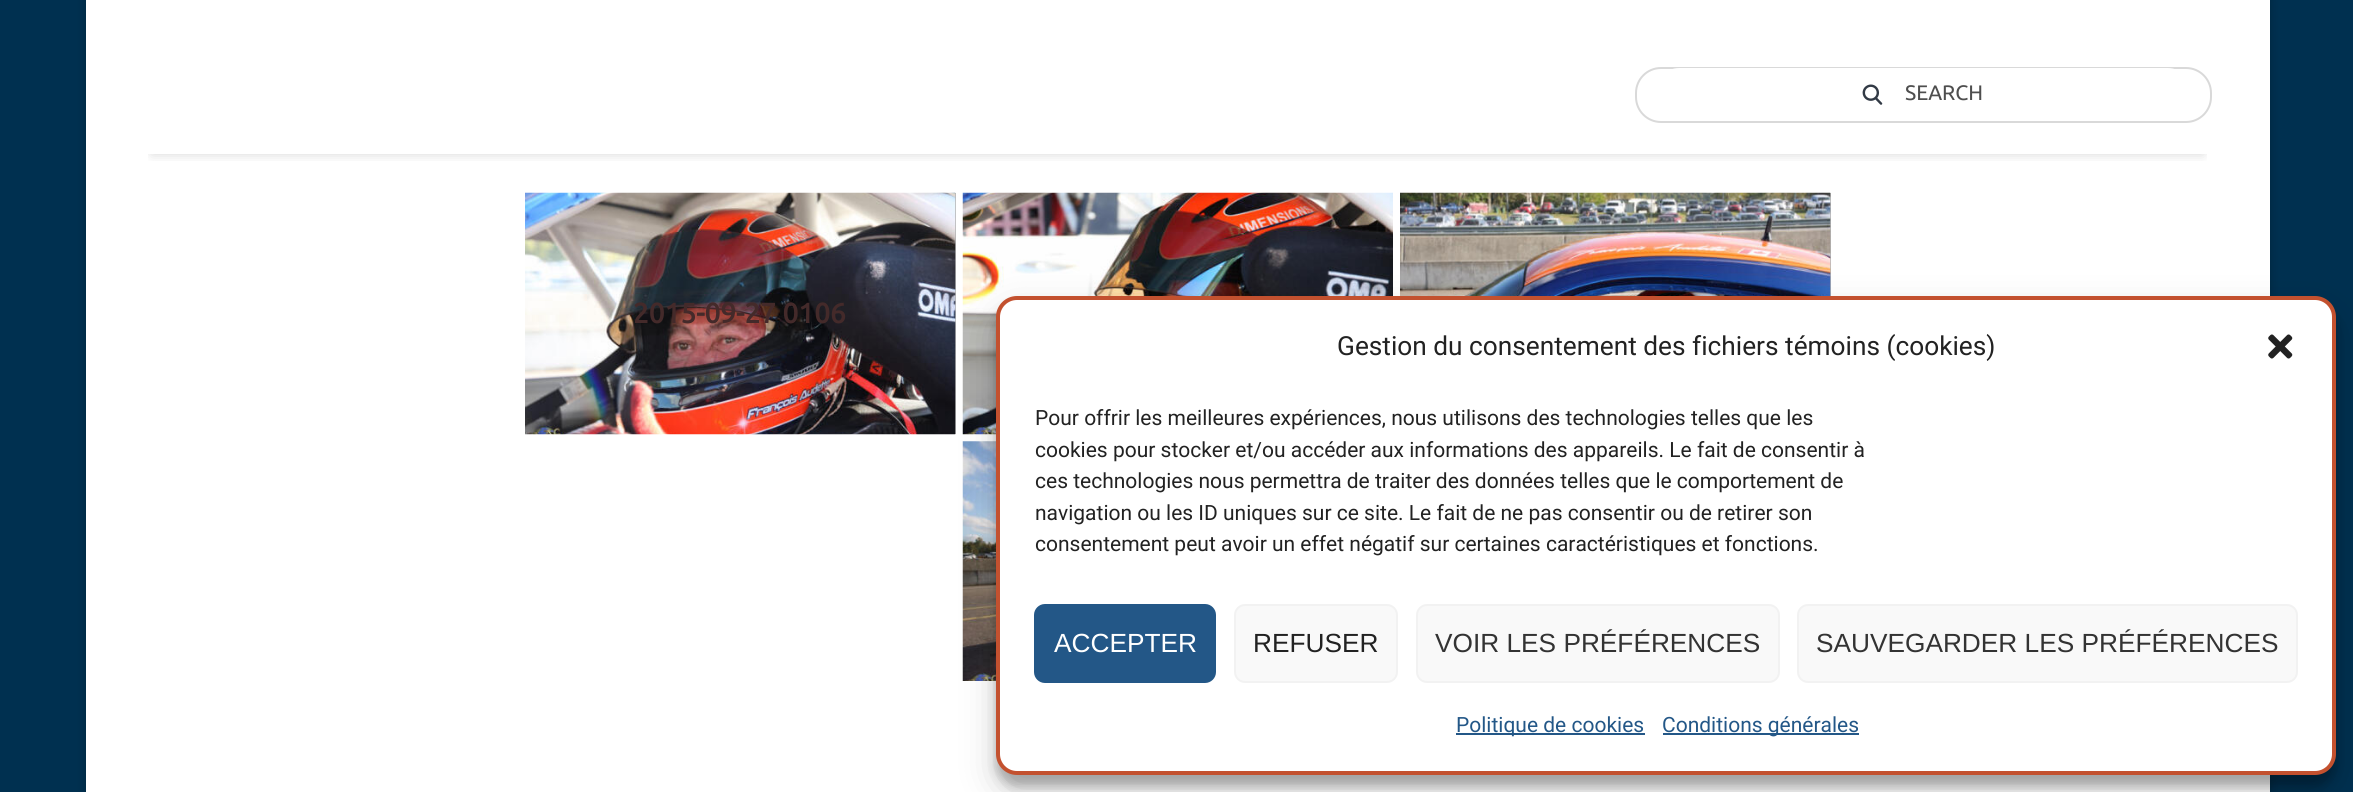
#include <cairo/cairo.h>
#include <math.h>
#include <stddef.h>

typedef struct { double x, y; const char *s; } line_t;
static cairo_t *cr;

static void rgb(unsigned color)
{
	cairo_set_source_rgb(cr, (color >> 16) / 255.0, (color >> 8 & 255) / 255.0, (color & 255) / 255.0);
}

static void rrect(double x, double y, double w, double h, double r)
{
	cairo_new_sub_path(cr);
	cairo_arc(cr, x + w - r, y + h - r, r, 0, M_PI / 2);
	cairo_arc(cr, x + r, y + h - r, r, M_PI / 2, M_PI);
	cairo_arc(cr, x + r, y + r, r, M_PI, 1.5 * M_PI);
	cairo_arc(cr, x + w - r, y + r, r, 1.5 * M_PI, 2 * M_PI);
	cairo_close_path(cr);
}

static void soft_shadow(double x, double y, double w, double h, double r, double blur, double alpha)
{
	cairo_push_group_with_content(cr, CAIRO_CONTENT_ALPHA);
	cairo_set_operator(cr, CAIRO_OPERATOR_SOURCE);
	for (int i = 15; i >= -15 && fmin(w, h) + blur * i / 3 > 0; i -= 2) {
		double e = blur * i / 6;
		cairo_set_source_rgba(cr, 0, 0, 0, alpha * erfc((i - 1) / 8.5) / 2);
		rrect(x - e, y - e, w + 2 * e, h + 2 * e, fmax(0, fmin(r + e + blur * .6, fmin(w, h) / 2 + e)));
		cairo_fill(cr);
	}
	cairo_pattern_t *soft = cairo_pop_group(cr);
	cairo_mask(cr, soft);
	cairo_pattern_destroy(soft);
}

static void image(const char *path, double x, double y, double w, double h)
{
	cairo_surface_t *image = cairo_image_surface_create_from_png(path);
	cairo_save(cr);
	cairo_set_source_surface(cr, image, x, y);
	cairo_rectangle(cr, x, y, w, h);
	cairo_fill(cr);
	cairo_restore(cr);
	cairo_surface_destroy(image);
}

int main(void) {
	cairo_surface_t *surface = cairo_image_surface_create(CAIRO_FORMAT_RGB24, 2353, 792);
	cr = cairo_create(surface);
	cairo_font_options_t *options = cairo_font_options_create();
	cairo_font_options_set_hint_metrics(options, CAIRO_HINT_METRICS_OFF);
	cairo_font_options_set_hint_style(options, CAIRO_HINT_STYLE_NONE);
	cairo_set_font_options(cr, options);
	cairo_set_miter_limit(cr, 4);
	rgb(0x003050);
	cairo_paint(cr);
	rgb(0x000000);
	soft_shadow(86, -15, 2184, 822, 0, 5, 0.23);
	rgb(0xffffff);
	cairo_rectangle(cr, 86, 0, 2184, 792);
	cairo_fill(cr);
	cairo_save(cr);
	cairo_rectangle(cr, 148, 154, 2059, 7);
	cairo_clip(cr);
	rgb(0x000000);
	soft_shadow(152, 84, 2051, 70, 0, 6, 0.16);
	cairo_restore(cr);
	rrect(1636, 68, 575, 54, 25);
	rgb(0xd9d9d9);
	cairo_stroke(cr);
	rgb(0xffffff);
	rrect(1654, 68, 539, 51, 25.5);
	cairo_fill(cr);
	image("img/1.png", 1862, 84, 21, 21);
	image("img/2.png", 962, 192, 431, 243);
	rgb(0xb3b3b3);
	cairo_rectangle(cr, 1830, 193, 1, 103);
	cairo_fill(cr);
	image("img/3.png", 1400, 192, 431, 104);
	cairo_rectangle(cr, 955, 193, 1, 241);
	cairo_fill(cr);
	image("img/4.png", 525, 192, 431, 243);
	image("img/5.png", 962, 441, 34, 240);
	rgb(0x000000);
	soft_shadow(996, 306, 1340, 480, 21, 5, 0.23);
	soft_shadow(996, 313, 1340, 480, 21, 17.5, 0.19);
	rgb(0xffffff);
	rrect(998, 298, 1336, 475, 19);
	cairo_fill_preserve(cr);
	rgb(0xc3512f);
	cairo_set_line_width(cr, 4);
	cairo_stroke(cr);
	image("img/6.png", 2268, 334, 25, 25);
	rgb(0x235787);
	rrect(1035, 605, 180, 77, 10);
	cairo_fill_preserve(cr);
	cairo_set_line_width(cr, 2);
	cairo_stroke(cr);
	rgb(0xf9f9f9);
	rrect(1235, 605, 162, 77, 10);
	cairo_fill_preserve(cr);
	rgb(0xf2f2f2);
	cairo_stroke(cr);
	rgb(0xf9f9f9);
	rrect(1417, 605, 362, 77, 10);
	cairo_fill_preserve(cr);
	rgb(0xf2f2f2);
	cairo_stroke(cr);
	rgb(0xf9f9f9);
	rrect(1798, 605, 499, 77, 10);
	cairo_fill_preserve(cr);
	rgb(0xf2f2f2);
	cairo_stroke(cr);
	rgb(0x235787);
	cairo_rectangle(cr, 1456, 733, 189, 2);
	cairo_fill(cr);
	cairo_rectangle(cr, 1663, 733, 196, 2);
	cairo_fill(cr);
	cairo_select_font_face(cr, "Ubuntu", CAIRO_FONT_SLANT_NORMAL, CAIRO_FONT_WEIGHT_NORMAL);
	cairo_set_font_size(cr, 21);
	rgb(0x4e4e4e);
	cairo_move_to(cr, 1905, 100);
	cairo_show_text(cr, "SEARCH");
	cairo_select_font_face(cr, "Ubuntu", CAIRO_FONT_SLANT_NORMAL, CAIRO_FONT_WEIGHT_BOLD);
	cairo_set_font_size(cr, 28);
	rgb(0x442a2a);
	cairo_move_to(cr, 633, 323);
	cairo_show_text(cr, "2015-09-27 0106");
	cairo_select_font_face(cr, "Roboto", CAIRO_FONT_SLANT_NORMAL, CAIRO_FONT_WEIGHT_NORMAL);
	cairo_set_font_size(cr, 26.25);
	rgb(0x222222);
	cairo_move_to(cr, 1337, 355);
	cairo_show_text(cr, "Gestion du consentement des fichiers témoins (cookies)");
	cairo_set_font_size(cr, 21);
	{
		static const line_t items[] = {
			{1035, 425, "Pour offrir les meilleures expériences, nous utilisons des technologies telles que les"},
			{1035, 457, "cookies pour stocker et/ou accéder aux informations des appareils. Le fait de consentir à"},
			{1035, 488, "ces technologies nous permettra de traiter des données telles que le comportement de"},
			{1035, 520, "navigation ou les ID uniques sur ce site. Le fait de ne pas consentir ou de retirer son"},
			{1035, 551, "consentement peut avoir un effet négatif sur certaines caractéristiques et fonctions."},
		};
		for (size_t i = 0; i < sizeof items / sizeof *items; i++) {
			cairo_move_to(cr, items[i].x, items[i].y);
			cairo_show_text(cr, items[i].s);
		}
	}
	cairo_select_font_face(cr, "Liberation Sans", CAIRO_FONT_SLANT_NORMAL, CAIRO_FONT_WEIGHT_NORMAL);
	cairo_set_font_size(cr, 26.25);
	rgb(0xffffff);
	cairo_move_to(cr, 1054, 652);
	cairo_show_text(cr, "ACCEPTER");
	rgb(0x222222);
	cairo_move_to(cr, 1253, 652);
	cairo_show_text(cr, "REFUSER");
	rgb(0x333333);
	cairo_move_to(cr, 1435, 652);
	cairo_show_text(cr, "VOIR LES PRÉFÉRENCES");
	cairo_move_to(cr, 1816, 652);
	cairo_show_text(cr, "SAUVEGARDER LES PRÉFÉRENCES");
	cairo_select_font_face(cr, "Roboto", CAIRO_FONT_SLANT_NORMAL, CAIRO_FONT_WEIGHT_NORMAL);
	cairo_set_font_size(cr, 21);
	rgb(0x235787);
	cairo_move_to(cr, 1456, 732);
	cairo_show_text(cr, "Politique de cookies");
	cairo_move_to(cr, 1662, 732);
	cairo_show_text(cr, "Conditions générales");
	cairo_surface_write_to_png(surface, "page.png");
	cairo_font_options_destroy(options);
	cairo_destroy(cr);
	cairo_surface_destroy(surface);
	return 0;
}
